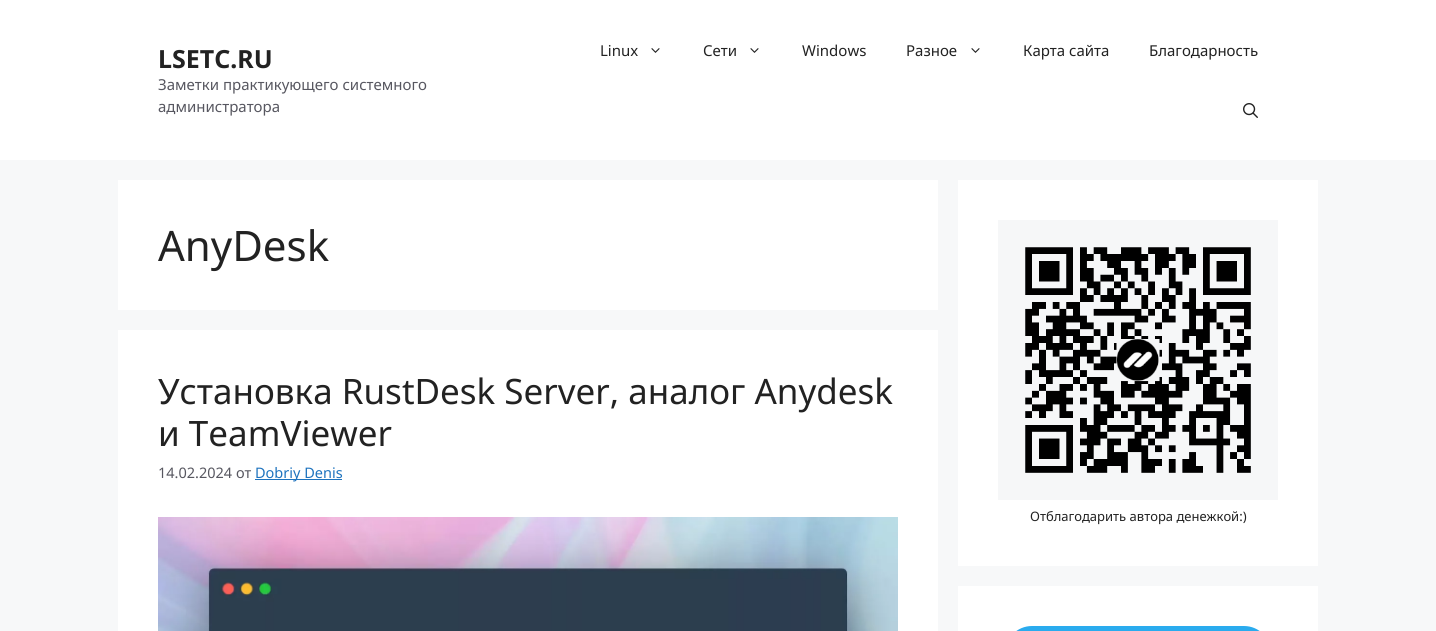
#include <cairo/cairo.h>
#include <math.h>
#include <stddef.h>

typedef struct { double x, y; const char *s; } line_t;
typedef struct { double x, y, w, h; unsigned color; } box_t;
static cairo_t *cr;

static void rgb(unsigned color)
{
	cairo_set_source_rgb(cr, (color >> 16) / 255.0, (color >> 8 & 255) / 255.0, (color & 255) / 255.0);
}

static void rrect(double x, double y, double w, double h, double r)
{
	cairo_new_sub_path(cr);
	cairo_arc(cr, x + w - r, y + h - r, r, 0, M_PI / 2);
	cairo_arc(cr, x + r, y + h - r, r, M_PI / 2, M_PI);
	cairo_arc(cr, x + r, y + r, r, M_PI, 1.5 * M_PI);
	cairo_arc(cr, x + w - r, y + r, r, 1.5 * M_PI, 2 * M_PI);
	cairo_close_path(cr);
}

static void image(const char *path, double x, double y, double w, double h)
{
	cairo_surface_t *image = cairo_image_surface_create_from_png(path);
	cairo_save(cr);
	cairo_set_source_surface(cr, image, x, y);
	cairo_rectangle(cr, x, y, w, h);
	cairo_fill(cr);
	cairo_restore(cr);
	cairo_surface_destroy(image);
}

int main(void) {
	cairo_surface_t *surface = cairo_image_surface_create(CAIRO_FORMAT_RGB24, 1436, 631);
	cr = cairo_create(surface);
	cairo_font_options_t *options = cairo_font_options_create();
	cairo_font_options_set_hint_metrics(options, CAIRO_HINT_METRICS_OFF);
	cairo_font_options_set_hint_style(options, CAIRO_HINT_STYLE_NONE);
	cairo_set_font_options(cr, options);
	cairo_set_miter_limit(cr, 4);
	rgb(0xf7f8f9);
	cairo_paint(cr);
	rgb(0xffffff);
	cairo_rectangle(cr, 0, 0, 1436, 160);
	cairo_fill(cr);
	image("img/1.png", 651, 48, 9, 5);
	image("img/1.png", 750, 48, 9, 5);
	image("img/1.png", 971, 48, 9, 5);
	image("img/2.png", 1243, 103, 15, 15);
	{
		static const box_t items[] = {
			{118, 180, 820, 130, 0xffffff},
			{118, 330, 820, 301, 0xffffff},
			{255, 479, 87, 1, 0x1e73be},
		};
		for (size_t i = 0; i < sizeof items / sizeof *items; i++) {
			rgb(items[i].color);
			cairo_rectangle(cr, items[i].x, items[i].y, items[i].w, items[i].h);
			cairo_fill(cr);
		}
	}
	image("img/3.png", 158, 517, 740, 114);
	rgb(0xffffff);
	cairo_rectangle(cr, 958, 180, 360, 386);
	cairo_fill(cr);
	image("img/4.png", 998, 220, 280, 280);
	cairo_rectangle(cr, 958, 586, 360, 45);
	cairo_fill(cr);
	rgb(0x2aabee);
	rrect(1005, 626, 266, 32, 27);
	cairo_fill(cr);
	cairo_select_font_face(cr, "Noto Sans", CAIRO_FONT_SLANT_NORMAL, CAIRO_FONT_WEIGHT_BOLD);
	cairo_set_font_size(cr, 25);
	rgb(0x222222);
	cairo_move_to(cr, 158, 68);
	cairo_show_text(cr, "LSETC.RU");
	cairo_select_font_face(cr, "Noto Sans", CAIRO_FONT_SLANT_NORMAL, CAIRO_FONT_WEIGHT_NORMAL);
	cairo_set_font_size(cr, 15);
	rgb(0x575760);
	cairo_move_to(cr, 158, 90);
	cairo_show_text(cr, "Заметки практикующего системного");
	cairo_move_to(cr, 158, 112);
	cairo_show_text(cr, "администратора");
	rgb(0x222222);
	{
		static const line_t items[] = {
			{600, 56, "Linux"},
			{703, 56, "Сети"},
			{802, 56, "Windows"},
			{906, 56, "Разное"},
			{1023, 56, "Карта сайта"},
			{1149, 56, "Благодарность"},
		};
		for (size_t i = 0; i < sizeof items / sizeof *items; i++) {
			cairo_move_to(cr, items[i].x, items[i].y);
			cairo_show_text(cr, items[i].s);
		}
	}
	cairo_set_font_size(cr, 42);
	cairo_move_to(cr, 158, 261);
	cairo_show_text(cr, "AnyDesk");
	cairo_set_font_size(cr, 35);
	cairo_move_to(cr, 158, 404);
	cairo_show_text(cr, "Установка RustDesk Server, аналог Anydesk");
	cairo_move_to(cr, 158, 446);
	cairo_show_text(cr, "и TeamViewer");
	cairo_set_font_size(cr, 14.5);
	rgb(0x575760);
	cairo_move_to(cr, 158, 478);
	cairo_show_text(cr, "14.02.2024 от");
	rgb(0x1e73be);
	cairo_move_to(cr, 255, 478);
	cairo_show_text(cr, "Dobriy Denis");
	cairo_set_font_size(cr, 13);
	rgb(0x222222);
	cairo_move_to(cr, 1030, 521);
	cairo_show_text(cr, "Отблагодарить автора денежкой:)");
	cairo_surface_write_to_png(surface, "page.png");
	cairo_font_options_destroy(options);
	cairo_destroy(cr);
	cairo_surface_destroy(surface);
	return 0;
}
